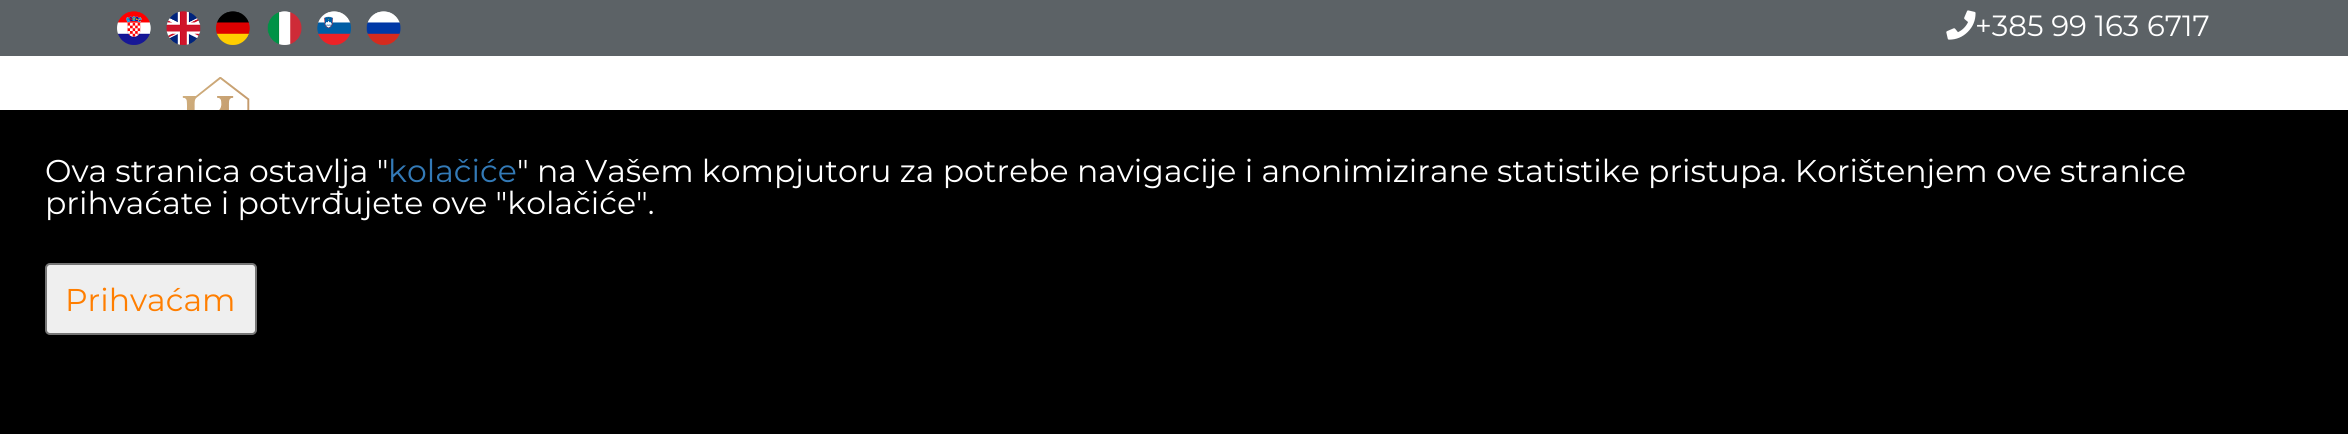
#include <cairo/cairo.h>
#include <math.h>
#include <stddef.h>

static cairo_t *cr;

static void rgb(unsigned color)
{
	cairo_set_source_rgb(cr, (color >> 16) / 255.0, (color >> 8 & 255) / 255.0, (color & 255) / 255.0);
}

static void rrect(double x, double y, double w, double h, double r)
{
	cairo_new_sub_path(cr);
	cairo_arc(cr, x + w - r, y + h - r, r, 0, M_PI / 2);
	cairo_arc(cr, x + r, y + h - r, r, M_PI / 2, M_PI);
	cairo_arc(cr, x + r, y + r, r, M_PI, 1.5 * M_PI);
	cairo_arc(cr, x + w - r, y + r, r, 1.5 * M_PI, 2 * M_PI);
	cairo_close_path(cr);
}

static void image(const char *path, double x, double y, double w, double h)
{
	cairo_surface_t *image = cairo_image_surface_create_from_png(path);
	cairo_save(cr);
	cairo_set_source_surface(cr, image, x, y);
	cairo_rectangle(cr, x, y, w, h);
	cairo_fill(cr);
	cairo_restore(cr);
	cairo_surface_destroy(image);
}

int main(void) {
	cairo_surface_t *surface = cairo_image_surface_create(CAIRO_FORMAT_RGB24, 2348, 434);
	cr = cairo_create(surface);
	cairo_font_options_t *options = cairo_font_options_create();
	cairo_font_options_set_hint_metrics(options, CAIRO_HINT_METRICS_OFF);
	cairo_font_options_set_hint_style(options, CAIRO_HINT_STYLE_NONE);
	cairo_set_font_options(cr, options);
	cairo_set_miter_limit(cr, 4);
	rgb(0xffffff);
	cairo_paint(cr);
	rgb(0x5c6266);
	cairo_rectangle(cr, 0, 0, 2348, 56);
	cairo_fill(cr);
	image("img/1.png", 117, 11, 34, 34);
	image("img/2.png", 166, 11, 35, 34);
	image("img/3.png", 216, 11, 34, 34);
	image("img/4.png", 267, 11, 35, 34);
	image("img/5.png", 317, 11, 34, 34);
	image("img/6.png", 366, 11, 35, 34);
	image("img/7.png", 1946, 10, 30, 30);
	image("img/8.png", 182, 77, 68, 33);
	rgb(0x000000);
	cairo_rectangle(cr, 0, 110, 2348, 324);
	cairo_fill(cr);
	rgb(0xefefef);
	rrect(46, 264, 210, 70, 4);
	cairo_fill_preserve(cr);
	rgb(0x767676);
	cairo_stroke(cr);
	cairo_select_font_face(cr, "Montserrat", CAIRO_FONT_SLANT_NORMAL, CAIRO_FONT_WEIGHT_NORMAL);
	cairo_set_font_size(cr, 29.25);
	rgb(0xffffff);
	cairo_move_to(cr, 1975, 36);
	cairo_show_text(cr, "+385 99 163 6717");
	cairo_set_font_size(cr, 31.5);
	cairo_move_to(cr, 45, 182);
	cairo_show_text(cr, "Ova stranica ostavlja \"");
	rgb(0x337ab7);
	cairo_move_to(cr, 388, 182);
	cairo_show_text(cr, "kolačiće");
	rgb(0xffffff);
	cairo_move_to(cr, 517, 182);
	cairo_show_text(cr, "\" na Vašem kompjutoru za potrebe navigacije i anonimizirane statistike pristupa. Korištenjem ove stranice");
	cairo_move_to(cr, 45, 214);
	cairo_show_text(cr, "prihvaćate i potvrđujete ove \"kolačiće\".");
	rgb(0xff7e00);
	cairo_move_to(cr, 65, 311);
	cairo_show_text(cr, "Prihvaćam");
	cairo_surface_write_to_png(surface, "page.png");
	cairo_font_options_destroy(options);
	cairo_destroy(cr);
	cairo_surface_destroy(surface);
	return 0;
}
